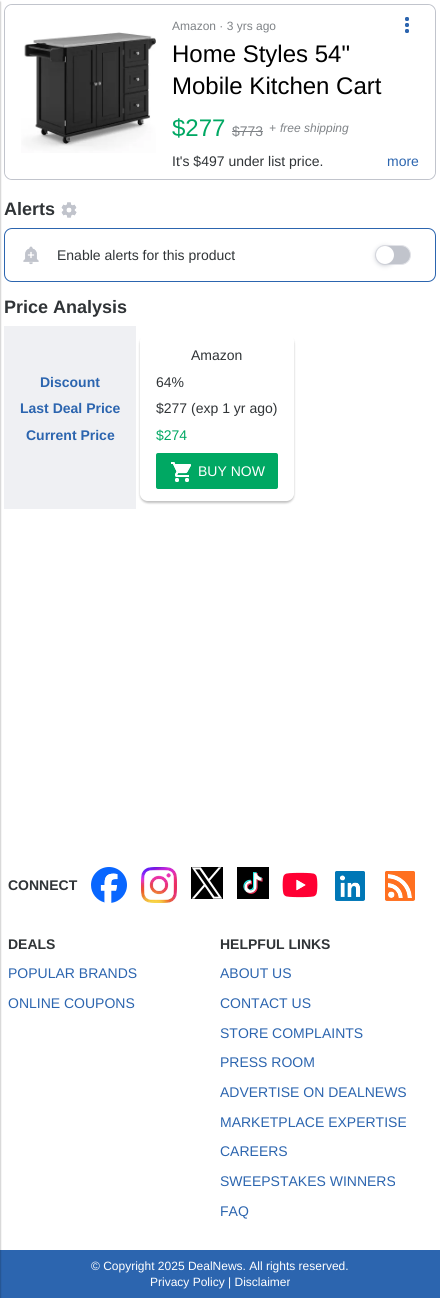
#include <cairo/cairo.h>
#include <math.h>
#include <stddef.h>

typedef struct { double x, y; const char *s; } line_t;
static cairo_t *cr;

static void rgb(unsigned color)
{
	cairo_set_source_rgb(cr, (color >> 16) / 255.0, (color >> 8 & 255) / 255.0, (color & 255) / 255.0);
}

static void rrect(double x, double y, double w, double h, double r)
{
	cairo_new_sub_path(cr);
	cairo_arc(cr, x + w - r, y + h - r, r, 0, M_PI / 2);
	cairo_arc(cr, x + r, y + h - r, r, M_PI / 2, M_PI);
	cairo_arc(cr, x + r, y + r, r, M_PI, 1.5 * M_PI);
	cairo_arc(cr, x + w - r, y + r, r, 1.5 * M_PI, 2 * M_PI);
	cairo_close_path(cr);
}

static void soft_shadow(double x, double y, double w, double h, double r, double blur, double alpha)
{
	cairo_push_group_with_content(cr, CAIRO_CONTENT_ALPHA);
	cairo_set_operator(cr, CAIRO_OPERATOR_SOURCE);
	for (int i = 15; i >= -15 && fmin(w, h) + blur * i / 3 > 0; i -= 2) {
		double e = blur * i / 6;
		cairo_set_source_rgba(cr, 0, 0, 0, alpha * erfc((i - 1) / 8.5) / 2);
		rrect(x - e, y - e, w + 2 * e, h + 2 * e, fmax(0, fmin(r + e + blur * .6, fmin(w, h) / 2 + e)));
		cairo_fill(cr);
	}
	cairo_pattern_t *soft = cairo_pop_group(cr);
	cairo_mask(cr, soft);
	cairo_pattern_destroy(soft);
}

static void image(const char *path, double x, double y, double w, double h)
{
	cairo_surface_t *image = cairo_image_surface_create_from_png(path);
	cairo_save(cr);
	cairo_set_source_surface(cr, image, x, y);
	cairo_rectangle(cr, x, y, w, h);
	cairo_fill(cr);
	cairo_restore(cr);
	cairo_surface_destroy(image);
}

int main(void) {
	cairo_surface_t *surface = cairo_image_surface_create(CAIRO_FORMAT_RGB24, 440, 1298);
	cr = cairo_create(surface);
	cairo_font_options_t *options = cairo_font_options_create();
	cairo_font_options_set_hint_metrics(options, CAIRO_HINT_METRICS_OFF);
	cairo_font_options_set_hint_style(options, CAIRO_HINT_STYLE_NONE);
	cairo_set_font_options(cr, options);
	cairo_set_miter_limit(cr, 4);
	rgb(0xffffff);
	cairo_paint(cr);
	rgb(0x2c65af);
	cairo_rectangle(cr, 0, 1250, 440, 48);
	cairo_fill(cr);
	rgb(0x000000);
	soft_shadow(-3, 2, 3, 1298, 0, 1, 0.24);
	soft_shadow(-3, 2, 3, 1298, 0, 1, 0.24);
	rrect(4.5, 4.5, 431, 175, 7.5);
	rgb(0xc1c4cc);
	cairo_set_line_width(cr, 1);
	cairo_stroke(cr);
	cairo_save(cr);
	rrect(5, 5, 430, 174, 7);
	cairo_clip(cr);
	rgb(0xffffff);
	rrect(5, 5, 430, 174, 8);
	cairo_fill(cr);
	cairo_restore(cr);
	image("img/1.png", 405, 17, 4, 16);
	image("img/2.png", 405, 17, 4, 16);
	image("img/3.png", 21, 32, 135, 121);
	rgb(0x7f8387);
	cairo_rectangle(cr, 232, 131, 31, 1);
	cairo_fill(cr);
	image("img/4.png", 61, 202, 16, 16);
	image("img/5.png", 61, 202, 16, 16);
	rrect(4.5, 228.5, 431, 53, 7.5);
	rgb(0x2c65af);
	cairo_stroke(cr);
	image("img/6.png", 23, 246, 16, 19);
	image("img/7.png", 23, 246, 16, 18);
	rgb(0xc1c4cc);
	rrect(375.5, 245.5, 35, 19, 9.5);
	cairo_fill_preserve(cr);
	rgb(0xe2e3e8);
	cairo_stroke(cr);
	rgb(0xc1c4cc);
	soft_shadow(376, 247, 18, 18, 9, 2.5, 1);
	rgb(0xffffff);
	cairo_arc(cr, 385, 255, 9, 0, 2 * M_PI);
	cairo_fill(cr);
	rgb(0xeff0f3);
	cairo_rectangle(cr, 4, 326, 132, 183);
	cairo_fill(cr);
	cairo_save(cr);
	cairo_set_fill_rule(cr, CAIRO_FILL_RULE_EVEN_ODD);
	cairo_new_path(cr);
	cairo_move_to(cr, 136, 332);
	cairo_line_to(cr, 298, 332);
	cairo_line_to(cr, 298, 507);
	cairo_line_to(cr, 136, 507);
	cairo_close_path(cr);
	cairo_move_to(cr, 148, 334);
	cairo_line_to(cr, 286, 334);
	cairo_curve_to(cr, 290.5, 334, 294, 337.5, 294, 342);
	cairo_line_to(cr, 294, 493);
	cairo_curve_to(cr, 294, 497.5, 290.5, 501, 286, 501);
	cairo_line_to(cr, 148, 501);
	cairo_curve_to(cr, 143.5, 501, 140, 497.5, 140, 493);
	cairo_line_to(cr, 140, 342);
	cairo_curve_to(cr, 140, 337.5, 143.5, 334, 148, 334);
	cairo_close_path(cr);
	cairo_clip(cr);
	rgb(0x000000);
	soft_shadow(140, 336, 154, 167, 8, 1, 0.24);
	cairo_restore(cr);
	rgb(0x00a863);
	rrect(156, 453, 122, 36, 2);
	cairo_fill(cr);
	image("img/8.png", 171, 462, 20, 20);
	image("img/9.png", 173, 462, 18, 20);
	image("img/10.png", 91, 867, 36, 36);
	image("img/11.png", 141, 867, 36, 36);
	image("img/12.png", 191, 867, 32, 32);
	image("img/13.png", 237, 867, 32, 32);
	image("img/14.png", 282, 872, 36, 26);
	image("img/15.png", 335, 871, 30, 30);
	image("img/16.png", 335, 871, 30, 30);
	image("img/17.png", 385, 871, 30, 30);
	image("img/18.png", 385, 871, 30, 30);
	cairo_select_font_face(cr, "Liberation Sans", CAIRO_FONT_SLANT_NORMAL, CAIRO_FONT_WEIGHT_NORMAL);
	cairo_set_font_size(cr, 12);
	rgb(0x7f8387);
	cairo_move_to(cr, 172, 30);
	cairo_show_text(cr, "Amazon · 3 yrs ago");
	cairo_set_font_size(cr, 24);
	rgb(0x000000);
	cairo_move_to(cr, 172, 62);
	cairo_show_text(cr, "Home Styles 54\"");
	cairo_move_to(cr, 172, 94);
	cairo_show_text(cr, "Mobile Kitchen Cart");
	rgb(0x00a863);
	cairo_move_to(cr, 172, 136);
	cairo_show_text(cr, "$277");
	cairo_set_font_size(cr, 14);
	rgb(0x7f8387);
	cairo_move_to(cr, 232, 136);
	cairo_show_text(cr, "$773");
	cairo_select_font_face(cr, "Liberation Sans", CAIRO_FONT_SLANT_ITALIC, CAIRO_FONT_WEIGHT_NORMAL);
	cairo_set_font_size(cr, 12);
	cairo_move_to(cr, 269, 132);
	cairo_show_text(cr, "+");
	cairo_move_to(cr, 280, 132);
	cairo_show_text(cr, "free shipping");
	cairo_select_font_face(cr, "Liberation Sans", CAIRO_FONT_SLANT_NORMAL, CAIRO_FONT_WEIGHT_NORMAL);
	cairo_set_font_size(cr, 14);
	rgb(0x303437);
	cairo_move_to(cr, 172, 166);
	cairo_show_text(cr, "It's $497 under list price.");
	rgb(0x2c65af);
	cairo_move_to(cr, 387, 166);
	cairo_show_text(cr, "more");
	cairo_select_font_face(cr, "Liberation Sans", CAIRO_FONT_SLANT_NORMAL, CAIRO_FONT_WEIGHT_BOLD);
	cairo_set_font_size(cr, 18);
	rgb(0x303437);
	cairo_move_to(cr, 4, 215);
	cairo_show_text(cr, "Alerts");
	cairo_select_font_face(cr, "Liberation Sans", CAIRO_FONT_SLANT_NORMAL, CAIRO_FONT_WEIGHT_NORMAL);
	cairo_set_font_size(cr, 14);
	cairo_move_to(cr, 57, 260);
	cairo_show_text(cr, "Enable alerts for this product");
	cairo_select_font_face(cr, "Liberation Sans", CAIRO_FONT_SLANT_NORMAL, CAIRO_FONT_WEIGHT_BOLD);
	cairo_set_font_size(cr, 18);
	cairo_move_to(cr, 4, 313);
	cairo_show_text(cr, "Price Analysis");
	cairo_set_font_size(cr, 14);
	rgb(0x2c65af);
	{
		static const line_t items[] = {
			{40, 387, "Discount"},
			{20, 413, "Last Deal Price"},
			{26, 440, "Current Price"},
		};
		for (size_t i = 0; i < sizeof items / sizeof *items; i++) {
			cairo_move_to(cr, items[i].x, items[i].y);
			cairo_show_text(cr, items[i].s);
		}
	}
	cairo_select_font_face(cr, "Liberation Sans", CAIRO_FONT_SLANT_NORMAL, CAIRO_FONT_WEIGHT_NORMAL);
	rgb(0x303437);
	{
		static const line_t items[] = {
			{191, 360, "Amazon"},
			{156, 387, "64%"},
			{156, 413, "$277 (exp 1 yr ago)"},
		};
		for (size_t i = 0; i < sizeof items / sizeof *items; i++) {
			cairo_move_to(cr, items[i].x, items[i].y);
			cairo_show_text(cr, items[i].s);
		}
	}
	rgb(0x00a863);
	cairo_move_to(cr, 156, 440);
	cairo_show_text(cr, "$274");
	rgb(0xffffff);
	cairo_move_to(cr, 198, 476);
	cairo_show_text(cr, "BUY NOW");
	cairo_select_font_face(cr, "Liberation Sans", CAIRO_FONT_SLANT_NORMAL, CAIRO_FONT_WEIGHT_BOLD);
	rgb(0x303437);
	cairo_move_to(cr, 8, 890);
	cairo_show_text(cr, "CONNECT");
	cairo_move_to(cr, 8, 949);
	cairo_show_text(cr, "DEALS");
	cairo_select_font_face(cr, "Liberation Sans", CAIRO_FONT_SLANT_NORMAL, CAIRO_FONT_WEIGHT_NORMAL);
	rgb(0x2c65af);
	cairo_move_to(cr, 8, 978);
	cairo_show_text(cr, "POPULAR BRANDS");
	cairo_move_to(cr, 8, 1008);
	cairo_show_text(cr, "ONLINE COUPONS");
	cairo_select_font_face(cr, "Liberation Sans", CAIRO_FONT_SLANT_NORMAL, CAIRO_FONT_WEIGHT_BOLD);
	rgb(0x303437);
	cairo_move_to(cr, 220, 949);
	cairo_show_text(cr, "HELPFUL LINKS");
	cairo_select_font_face(cr, "Liberation Sans", CAIRO_FONT_SLANT_NORMAL, CAIRO_FONT_WEIGHT_NORMAL);
	rgb(0x2c65af);
	{
		static const line_t items[] = {
			{220, 978, "ABOUT US"},
			{220, 1008, "CONTACT US"},
			{220, 1038, "STORE COMPLAINTS"},
			{220, 1067, "PRESS ROOM"},
			{220, 1097, "ADVERTISE ON DEALNEWS"},
			{220, 1127, "MARKETPLACE EXPERTISE"},
			{220, 1156, "CAREERS"},
			{220, 1186, "SWEEPSTAKES WINNERS"},
			{220, 1216, "FAQ"},
		};
		for (size_t i = 0; i < sizeof items / sizeof *items; i++) {
			cairo_move_to(cr, items[i].x, items[i].y);
			cairo_show_text(cr, items[i].s);
		}
	}
	cairo_set_font_size(cr, 12);
	rgb(0xffffff);
	cairo_move_to(cr, 91, 1270);
	cairo_show_text(cr, "© Copyright 2025 DealNews. All rights reserved.");
	cairo_move_to(cr, 150, 1286);
	cairo_show_text(cr, "Privacy Policy | Disclaimer");
	cairo_surface_write_to_png(surface, "page.png");
	cairo_font_options_destroy(options);
	cairo_destroy(cr);
	cairo_surface_destroy(surface);
	return 0;
}
